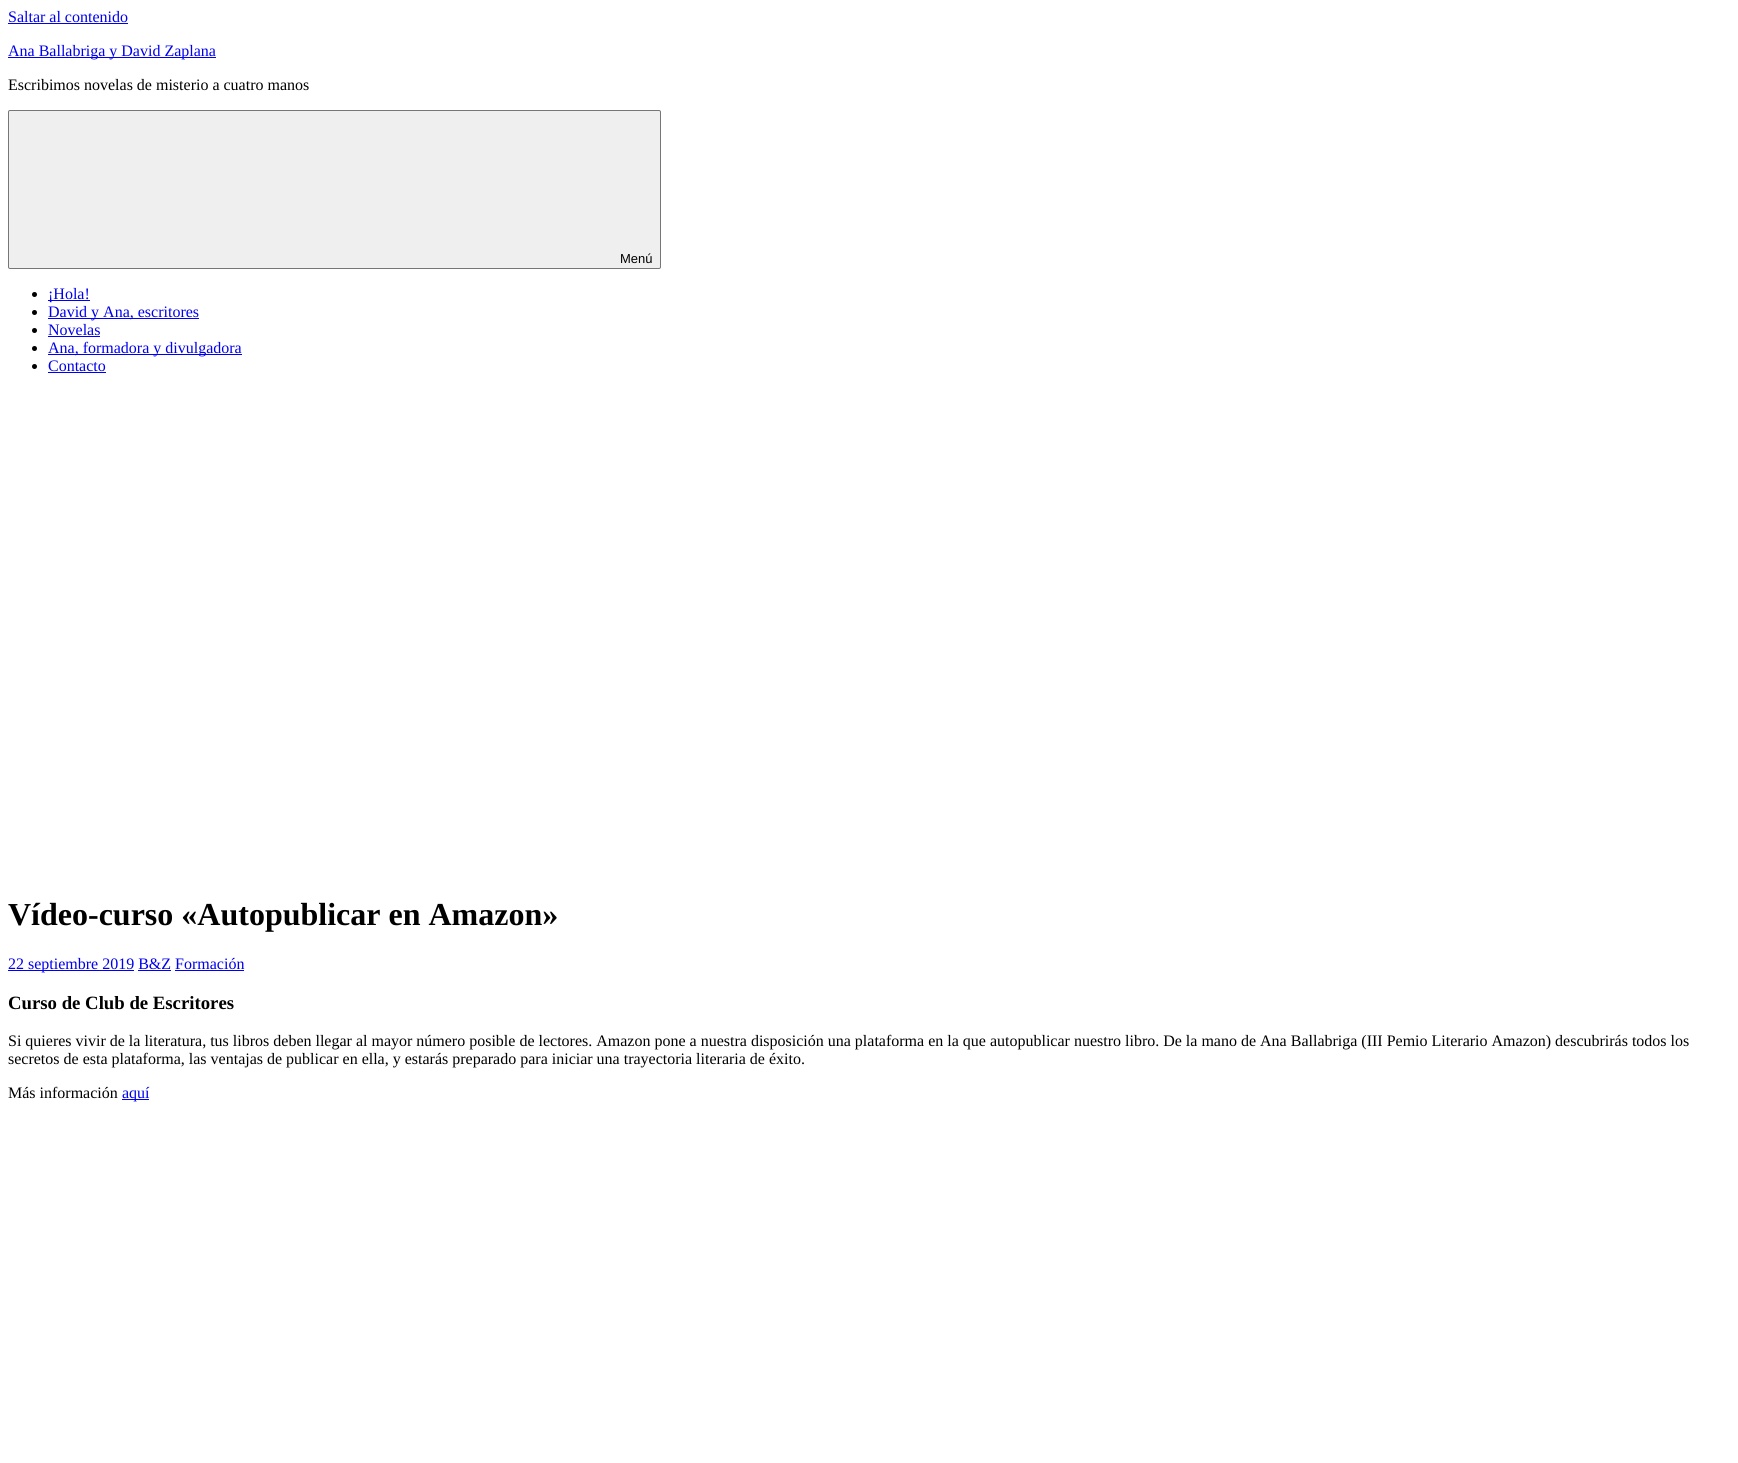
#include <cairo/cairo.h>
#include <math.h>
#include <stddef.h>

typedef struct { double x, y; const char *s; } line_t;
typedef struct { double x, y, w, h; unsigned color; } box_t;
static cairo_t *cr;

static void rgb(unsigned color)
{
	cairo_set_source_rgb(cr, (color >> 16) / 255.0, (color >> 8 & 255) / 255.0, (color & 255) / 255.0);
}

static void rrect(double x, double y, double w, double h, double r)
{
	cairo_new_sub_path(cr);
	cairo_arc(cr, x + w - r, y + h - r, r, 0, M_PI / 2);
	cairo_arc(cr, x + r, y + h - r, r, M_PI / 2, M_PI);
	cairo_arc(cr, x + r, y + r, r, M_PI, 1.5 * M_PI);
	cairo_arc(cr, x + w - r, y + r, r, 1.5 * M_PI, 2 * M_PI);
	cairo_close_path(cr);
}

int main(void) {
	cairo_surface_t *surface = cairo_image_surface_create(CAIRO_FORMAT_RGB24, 1738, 1463);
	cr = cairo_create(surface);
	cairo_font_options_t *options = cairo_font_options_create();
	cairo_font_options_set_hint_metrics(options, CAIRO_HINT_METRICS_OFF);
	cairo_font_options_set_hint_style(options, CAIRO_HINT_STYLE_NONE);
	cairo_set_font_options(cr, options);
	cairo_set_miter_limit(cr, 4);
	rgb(0xffffff);
	cairo_paint(cr);
	rgb(0x0000ee);
	cairo_rectangle(cr, 8, 23, 120, 1);
	cairo_fill(cr);
	cairo_rectangle(cr, 8, 57, 208, 1);
	cairo_fill(cr);
	rgb(0xefefef);
	rrect(8.5, 110.5, 652, 158, 1.5);
	cairo_fill_preserve(cr);
	rgb(0x767676);
	cairo_set_line_width(cr, 1);
	cairo_stroke(cr);
	rgb(0x000000);
	cairo_arc(cr, 34.5, 294.5, 2.5, 0, 2 * M_PI);
	cairo_fill(cr);
	rgb(0x0000ee);
	cairo_rectangle(cr, 48, 300, 42, 1);
	cairo_fill(cr);
	rgb(0x000000);
	cairo_arc(cr, 34.5, 312.5, 2.5, 0, 2 * M_PI);
	cairo_fill(cr);
	rgb(0x0000ee);
	cairo_rectangle(cr, 48, 318, 151, 1);
	cairo_fill(cr);
	rgb(0x000000);
	cairo_arc(cr, 34.5, 330.5, 2.5, 0, 2 * M_PI);
	cairo_fill(cr);
	rgb(0x0000ee);
	cairo_rectangle(cr, 48, 336, 52, 1);
	cairo_fill(cr);
	rgb(0x000000);
	cairo_arc(cr, 34.5, 348.5, 2.5, 0, 2 * M_PI);
	cairo_fill(cr);
	rgb(0x0000ee);
	cairo_rectangle(cr, 48, 354, 194, 1);
	cairo_fill(cr);
	rgb(0x000000);
	cairo_arc(cr, 34.5, 366.5, 2.5, 0, 2 * M_PI);
	cairo_fill(cr);
	{
		static const box_t items[] = {
			{48, 372, 58, 1, 0x0000ee},
			{8, 970, 126, 1, 0x0000ee},
			{138, 970, 33, 1, 0x0000ee},
			{175, 970, 69, 1, 0x0000ee},
			{122, 1099, 27, 1, 0x0000ee},
		};
		for (size_t i = 0; i < sizeof items / sizeof *items; i++) {
			rgb(items[i].color);
			cairo_rectangle(cr, items[i].x, items[i].y, items[i].w, items[i].h);
			cairo_fill(cr);
		}
	}
	cairo_select_font_face(cr, "Liberation Serif", CAIRO_FONT_SLANT_NORMAL, CAIRO_FONT_WEIGHT_NORMAL);
	cairo_set_font_size(cr, 16);
	cairo_move_to(cr, 8, 22);
	cairo_show_text(cr, "Saltar al contenido");
	cairo_move_to(cr, 8, 56);
	cairo_show_text(cr, "Ana Ballabriga y David Zaplana");
	rgb(0x000000);
	cairo_move_to(cr, 8, 90);
	cairo_show_text(cr, "Escribimos novelas de misterio a cuatro manos");
	cairo_select_font_face(cr, "Liberation Sans", CAIRO_FONT_SLANT_NORMAL, CAIRO_FONT_WEIGHT_NORMAL);
	cairo_set_font_size(cr, 13);
	cairo_move_to(cr, 620, 263);
	cairo_show_text(cr, "Menú");
	cairo_select_font_face(cr, "Liberation Serif", CAIRO_FONT_SLANT_NORMAL, CAIRO_FONT_WEIGHT_NORMAL);
	cairo_set_font_size(cr, 16);
	rgb(0x0000ee);
	{
		static const line_t items[] = {
			{48, 299, "¡Hola!"},
			{48, 317, "David y Ana, escritores"},
			{48, 335, "Novelas"},
			{48, 353, "Ana, formadora y divulgadora"},
			{48, 371, "Contacto"},
		};
		for (size_t i = 0; i < sizeof items / sizeof *items; i++) {
			cairo_move_to(cr, items[i].x, items[i].y);
			cairo_show_text(cr, items[i].s);
		}
	}
	cairo_select_font_face(cr, "Liberation Serif", CAIRO_FONT_SLANT_NORMAL, CAIRO_FONT_WEIGHT_BOLD);
	cairo_set_font_size(cr, 32);
	rgb(0x000000);
	cairo_move_to(cr, 8, 925);
	cairo_show_text(cr, "Vídeo-curso «Autopublicar en Amazon»");
	cairo_select_font_face(cr, "Liberation Serif", CAIRO_FONT_SLANT_NORMAL, CAIRO_FONT_WEIGHT_NORMAL);
	cairo_set_font_size(cr, 16);
	rgb(0x0000ee);
	cairo_move_to(cr, 8, 969);
	cairo_show_text(cr, "22 septiembre 2019 B&Z Formación");
	cairo_select_font_face(cr, "Liberation Serif", CAIRO_FONT_SLANT_NORMAL, CAIRO_FONT_WEIGHT_BOLD);
	cairo_set_font_size(cr, 18.75);
	rgb(0x000000);
	cairo_move_to(cr, 8, 1009);
	cairo_show_text(cr, "Curso de Club de Escritores");
	cairo_select_font_face(cr, "Liberation Serif", CAIRO_FONT_SLANT_NORMAL, CAIRO_FONT_WEIGHT_NORMAL);
	cairo_set_font_size(cr, 16);
	{
		static const line_t items[] = {
			{8, 1046, "Si quieres vivir de la literatura, tus libros deben llegar al mayor número posible de lectores. Amazon pone a nuestra disposición una plataforma en la que autopublicar nuestro libro. De la mano de Ana Ballabriga (III Pemio Literario Amazon) descubrirás todos los"},
			{8, 1064, "secretos de esta plataforma, las ventajas de publicar en ella, y estarás preparado para iniciar una trayectoria literaria de éxito."},
			{8, 1098, "Más información"},
		};
		for (size_t i = 0; i < sizeof items / sizeof *items; i++) {
			cairo_move_to(cr, items[i].x, items[i].y);
			cairo_show_text(cr, items[i].s);
		}
	}
	rgb(0x0000ee);
	cairo_move_to(cr, 122, 1098);
	cairo_show_text(cr, "aquí");
	cairo_surface_write_to_png(surface, "page.png");
	cairo_font_options_destroy(options);
	cairo_destroy(cr);
	cairo_surface_destroy(surface);
	return 0;
}
